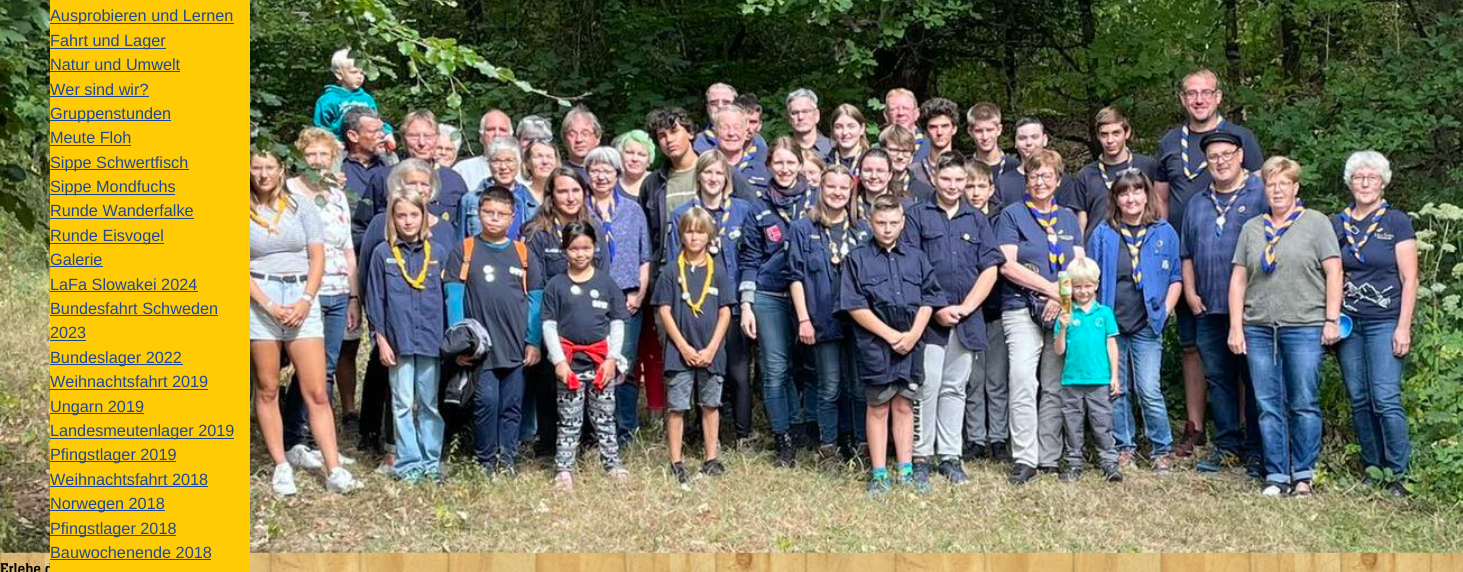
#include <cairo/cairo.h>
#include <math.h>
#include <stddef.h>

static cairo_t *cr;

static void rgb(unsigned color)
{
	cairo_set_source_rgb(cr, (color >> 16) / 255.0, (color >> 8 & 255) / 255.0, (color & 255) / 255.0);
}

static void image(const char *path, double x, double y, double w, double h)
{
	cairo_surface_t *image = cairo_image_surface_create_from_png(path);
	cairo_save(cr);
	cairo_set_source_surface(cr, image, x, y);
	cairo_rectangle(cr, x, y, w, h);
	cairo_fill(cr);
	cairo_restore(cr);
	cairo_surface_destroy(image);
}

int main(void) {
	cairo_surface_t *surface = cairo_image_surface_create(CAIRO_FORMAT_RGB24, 1463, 572);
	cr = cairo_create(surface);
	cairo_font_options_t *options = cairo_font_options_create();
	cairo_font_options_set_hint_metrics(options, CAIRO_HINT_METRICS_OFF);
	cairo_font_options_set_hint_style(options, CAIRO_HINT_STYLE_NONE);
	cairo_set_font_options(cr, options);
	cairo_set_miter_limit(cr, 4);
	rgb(0xffffff);
	cairo_paint(cr);
	image("img/1.png", 0, 552, 1463, 20);
	image("img/2.png", 0, 0, 1463, 553);
	cairo_select_font_face(cr, "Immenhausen", CAIRO_FONT_SLANT_NORMAL, CAIRO_FONT_WEIGHT_NORMAL);
	cairo_set_font_size(cr, 16.25);
	rgb(0x000000);
	cairo_move_to(cr, 0, 574);
	cairo_show_text(cr, "Erlebe d");
	rgb(0xffcb04);
	cairo_rectangle(cr, 50, 0, 200, 572);
	cairo_fill(cr);
	cairo_select_font_face(cr, "Liberation Sans", CAIRO_FONT_SLANT_NORMAL, CAIRO_FONT_WEIGHT_NORMAL);
	rgb(0x1d4899);
	cairo_move_to(cr, 50, 558);
	cairo_show_text(cr, "Bauwochenende 2018");
	cairo_rectangle(cr, 50, 559, 161, 1);
	cairo_fill(cr);
	cairo_rectangle(cr, 50, 535, 126, 1);
	cairo_fill(cr);
	cairo_move_to(cr, 50, 534);
	cairo_show_text(cr, "Pfingstlager 2018");
	cairo_rectangle(cr, 50, 510, 115, 1);
	cairo_fill(cr);
	cairo_move_to(cr, 50, 509);
	cairo_show_text(cr, "Norwegen 2018");
	cairo_move_to(cr, 50, 485);
	cairo_show_text(cr, "Weihnachtsfahrt 2018");
	cairo_rectangle(cr, 50, 486, 158, 1);
	cairo_fill(cr);
	cairo_rectangle(cr, 50, 461, 126, 1);
	cairo_fill(cr);
	cairo_move_to(cr, 50, 460);
	cairo_show_text(cr, "Pfingstlager 2019");
	cairo_rectangle(cr, 50, 438, 184, 1);
	cairo_fill(cr);
	cairo_move_to(cr, 50, 436);
	cairo_show_text(cr, "Landesmeutenlager 2019");
	cairo_rectangle(cr, 50, 413, 94, 1);
	cairo_fill(cr);
	cairo_move_to(cr, 50, 412);
	cairo_show_text(cr, "Ungarn 2019");
	cairo_move_to(cr, 50, 387);
	cairo_show_text(cr, "Weihnachtsfahrt 2019");
	cairo_rectangle(cr, 50, 389, 158, 1);
	cairo_fill(cr);
	cairo_rectangle(cr, 50, 364, 133, 1);
	cairo_fill(cr);
	cairo_move_to(cr, 50, 363);
	cairo_show_text(cr, "Bundeslager 2022");
	cairo_move_to(cr, 50, 338);
	cairo_show_text(cr, "2023");
	cairo_rectangle(cr, 50, 340, 36, 1);
	cairo_fill(cr);
	cairo_move_to(cr, 50, 314);
	cairo_show_text(cr, "Bundesfahrt Schweden");
	cairo_rectangle(cr, 50, 315, 168, 1);
	cairo_fill(cr);
	cairo_move_to(cr, 50, 290);
	cairo_show_text(cr, "LaFa Slowakei 2024");
	cairo_rectangle(cr, 50, 291, 148, 1);
	cairo_fill(cr);
	cairo_move_to(cr, 50, 265);
	cairo_show_text(cr, "Galerie");
	cairo_rectangle(cr, 50, 266, 53, 1);
	cairo_fill(cr);
	cairo_rectangle(cr, 50, 243, 114, 1);
	cairo_fill(cr);
	cairo_move_to(cr, 50, 241);
	cairo_show_text(cr, "Runde Eisvogel");
	cairo_move_to(cr, 50, 216);
	cairo_show_text(cr, "Runde Wanderfalke");
	cairo_rectangle(cr, 50, 218, 144, 1);
	cairo_fill(cr);
	cairo_rectangle(cr, 50, 194, 125, 1);
	cairo_fill(cr);
	cairo_move_to(cr, 50, 192);
	cairo_show_text(cr, "Sippe Mondfuchs");
	cairo_rectangle(cr, 50, 169, 139, 1);
	cairo_fill(cr);
	cairo_move_to(cr, 50, 168);
	cairo_show_text(cr, "Sippe Schwertfisch");
	cairo_move_to(cr, 50, 143);
	cairo_show_text(cr, "Meute Floh");
	cairo_rectangle(cr, 50, 145, 81, 1);
	cairo_fill(cr);
	cairo_rectangle(cr, 50, 120, 121, 1);
	cairo_fill(cr);
	cairo_move_to(cr, 50, 119);
	cairo_show_text(cr, "Gruppenstunden");
	cairo_move_to(cr, 50, 95);
	cairo_show_text(cr, "Wer sind wir?");
	cairo_rectangle(cr, 50, 96, 99, 1);
	cairo_fill(cr);
	cairo_move_to(cr, 50, 70);
	cairo_show_text(cr, "Natur und Umwelt");
	cairo_rectangle(cr, 50, 71, 130, 1);
	cairo_fill(cr);
	cairo_rectangle(cr, 50, 48, 116, 1);
	cairo_fill(cr);
	cairo_move_to(cr, 50, 46);
	cairo_show_text(cr, "Fahrt und Lager");
	cairo_rectangle(cr, 50, 23, 184, 1);
	cairo_fill(cr);
	cairo_move_to(cr, 50, 21);
	cairo_show_text(cr, "Ausprobieren und Lernen");
	cairo_surface_write_to_png(surface, "page.png");
	cairo_font_options_destroy(options);
	cairo_destroy(cr);
	cairo_surface_destroy(surface);
	return 0;
}
